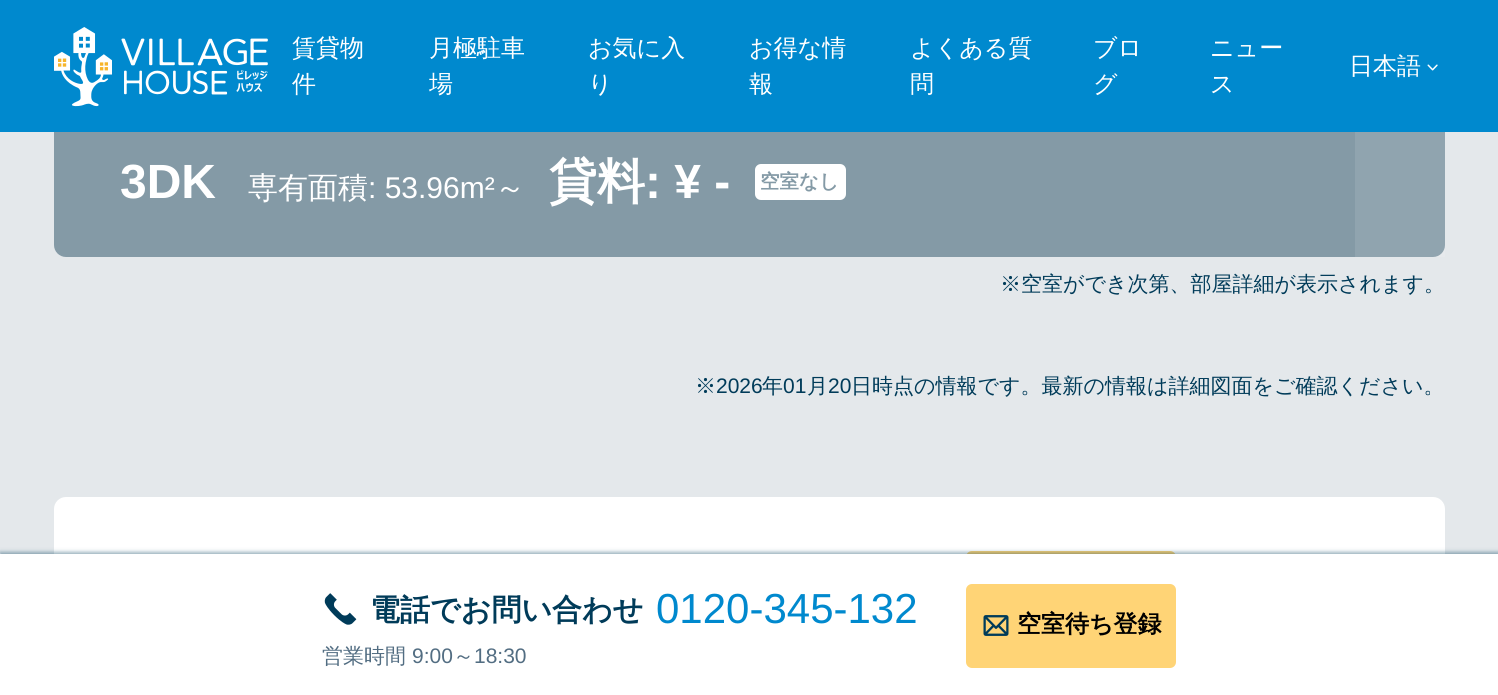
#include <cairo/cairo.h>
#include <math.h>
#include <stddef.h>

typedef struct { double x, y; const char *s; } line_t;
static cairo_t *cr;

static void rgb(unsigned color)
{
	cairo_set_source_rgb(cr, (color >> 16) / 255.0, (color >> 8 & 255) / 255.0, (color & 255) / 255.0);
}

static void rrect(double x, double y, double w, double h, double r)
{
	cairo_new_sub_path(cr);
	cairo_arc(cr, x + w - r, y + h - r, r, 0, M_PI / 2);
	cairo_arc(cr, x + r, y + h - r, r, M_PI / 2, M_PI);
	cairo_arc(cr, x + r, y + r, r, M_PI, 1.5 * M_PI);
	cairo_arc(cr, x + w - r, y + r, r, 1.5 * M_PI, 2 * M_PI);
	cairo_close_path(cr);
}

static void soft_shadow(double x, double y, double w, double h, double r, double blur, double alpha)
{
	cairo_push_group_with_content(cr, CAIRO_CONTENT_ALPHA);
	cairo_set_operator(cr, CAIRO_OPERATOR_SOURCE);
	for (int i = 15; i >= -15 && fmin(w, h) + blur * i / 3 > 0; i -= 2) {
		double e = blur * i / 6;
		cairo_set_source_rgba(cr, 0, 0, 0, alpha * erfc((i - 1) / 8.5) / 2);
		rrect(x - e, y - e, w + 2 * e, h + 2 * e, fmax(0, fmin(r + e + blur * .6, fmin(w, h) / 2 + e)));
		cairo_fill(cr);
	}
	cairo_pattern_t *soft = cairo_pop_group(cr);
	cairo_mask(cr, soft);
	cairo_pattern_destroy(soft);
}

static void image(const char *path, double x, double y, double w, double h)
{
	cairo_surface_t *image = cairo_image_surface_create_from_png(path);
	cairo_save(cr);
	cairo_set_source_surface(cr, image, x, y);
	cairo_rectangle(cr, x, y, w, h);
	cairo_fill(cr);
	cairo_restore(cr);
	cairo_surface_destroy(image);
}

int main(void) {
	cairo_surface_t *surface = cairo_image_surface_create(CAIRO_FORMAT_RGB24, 1498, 695);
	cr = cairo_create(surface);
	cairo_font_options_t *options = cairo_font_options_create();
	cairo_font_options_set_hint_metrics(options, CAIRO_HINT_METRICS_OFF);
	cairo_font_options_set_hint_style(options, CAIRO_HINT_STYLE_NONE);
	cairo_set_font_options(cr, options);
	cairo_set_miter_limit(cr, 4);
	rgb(0xe4e8eb);
	cairo_paint(cr);
	rgb(0x849aa6);
	rrect(54, 107, 1391, 150, 12);
	cairo_fill(cr);
	rgb(0x0089ce);
	cairo_rectangle(cr, 0, 0, 1498, 132);
	cairo_fill(cr);
	image("img/1.png", 54, 27, 214, 80);
	image("img/2.png", 1427, 64, 11, 7);
	rgb(0xffffff);
	rrect(755, 164, 91, 36, 6);
	cairo_fill(cr);
	cairo_set_source_rgba(cr, 1, 1, 1, 0.1);
	cairo_rectangle(cr, 1355, 132, 90, 125);
	cairo_fill(cr);
	rgb(0xffffff);
	rrect(54, 497, 1391, 190, 12);
	cairo_fill(cr);
	rgb(0xffd476);
	rrect(966, 551, 210, 84, 6);
	cairo_fill(cr);
	rgb(0x003b59);
	soft_shadow(0, 552, 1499, 143, 0, 2, 0.4);
	rgb(0xffffff);
	cairo_rectangle(cr, 0, 554, 1498, 141);
	cairo_fill(cr);
	image("img/3.png", 324, 593, 33, 32);
	rgb(0xffd476);
	rrect(966, 584, 210, 84, 6);
	cairo_fill(cr);
	image("img/4.png", 983, 615, 26, 21);
	cairo_select_font_face(cr, "WenQuanYi Zen Hei Medium", CAIRO_FONT_SLANT_NORMAL, CAIRO_FONT_WEIGHT_NORMAL);
	cairo_set_font_size(cr, 24);
	rgb(0xffffff);
	{
		static const line_t items[] = {
			{292, 56, "賃貸物"},
			{292, 92, "件"},
			{429, 56, "月極駐車"},
			{429, 92, "場"},
			{588, 56, "お気に入"},
			{588, 92, "り"},
			{749, 56, "お得な情"},
			{749, 92, "報"},
			{910, 56, "よくある質"},
			{910, 92, "問"},
			{1093, 56, "ブロ"},
			{1093, 92, "グ"},
			{1210, 56, "ニュー"},
			{1210, 92, "ス"},
			{1349, 74, "日本語"},
		};
		for (size_t i = 0; i < sizeof items / sizeof *items; i++) {
			cairo_move_to(cr, items[i].x, items[i].y);
			cairo_show_text(cr, items[i].s);
		}
	}
	cairo_select_font_face(cr, "Liberation Sans", CAIRO_FONT_SLANT_NORMAL, CAIRO_FONT_WEIGHT_BOLD);
	cairo_set_font_size(cr, 48);
	cairo_move_to(cr, 120, 198);
	cairo_show_text(cr, "3DK");
	cairo_select_font_face(cr, "WenQuanYi Zen Hei Medium", CAIRO_FONT_SLANT_NORMAL, CAIRO_FONT_WEIGHT_NORMAL);
	cairo_set_font_size(cr, 30);
	cairo_move_to(cr, 248, 198);
	cairo_show_text(cr, "専有面積");
	cairo_select_font_face(cr, "Liberation Sans", CAIRO_FONT_SLANT_NORMAL, CAIRO_FONT_WEIGHT_NORMAL);
	cairo_move_to(cr, 368, 198);
	cairo_show_text(cr, ": 53.96m²");
	cairo_select_font_face(cr, "WenQuanYi Zen Hei Medium", CAIRO_FONT_SLANT_NORMAL, CAIRO_FONT_WEIGHT_NORMAL);
	cairo_move_to(cr, 495, 198);
	cairo_show_text(cr, "～");
	cairo_select_font_face(cr, "WenQuanYi Zen Hei", CAIRO_FONT_SLANT_NORMAL, CAIRO_FONT_WEIGHT_BOLD);
	cairo_set_font_size(cr, 48);
	cairo_move_to(cr, 549, 198);
	cairo_show_text(cr, "貸料");
	cairo_select_font_face(cr, "Liberation Sans", CAIRO_FONT_SLANT_NORMAL, CAIRO_FONT_WEIGHT_BOLD);
	cairo_move_to(cr, 645, 198);
	cairo_show_text(cr, ": ¥ -");
	cairo_select_font_face(cr, "WenQuanYi Zen Hei", CAIRO_FONT_SLANT_NORMAL, CAIRO_FONT_WEIGHT_BOLD);
	cairo_set_font_size(cr, 19.5);
	rgb(0x849aa6);
	cairo_move_to(cr, 760, 188);
	cairo_show_text(cr, "空室なし");
	cairo_select_font_face(cr, "WenQuanYi Zen Hei Medium", CAIRO_FONT_SLANT_NORMAL, CAIRO_FONT_WEIGHT_NORMAL);
	cairo_set_font_size(cr, 21);
	rgb(0x003b59);
	cairo_move_to(cr, 1000, 291);
	cairo_show_text(cr, "※空室ができ次第、部屋詳細が表示されます。");
	cairo_move_to(cr, 695, 393);
	cairo_show_text(cr, "※");
	cairo_select_font_face(cr, "Liberation Sans", CAIRO_FONT_SLANT_NORMAL, CAIRO_FONT_WEIGHT_NORMAL);
	cairo_move_to(cr, 716, 393);
	cairo_show_text(cr, "2026");
	cairo_select_font_face(cr, "WenQuanYi Zen Hei Medium", CAIRO_FONT_SLANT_NORMAL, CAIRO_FONT_WEIGHT_NORMAL);
	cairo_move_to(cr, 762, 393);
	cairo_show_text(cr, "年");
	cairo_select_font_face(cr, "Liberation Sans", CAIRO_FONT_SLANT_NORMAL, CAIRO_FONT_WEIGHT_NORMAL);
	cairo_move_to(cr, 783, 393);
	cairo_show_text(cr, "01");
	cairo_select_font_face(cr, "WenQuanYi Zen Hei Medium", CAIRO_FONT_SLANT_NORMAL, CAIRO_FONT_WEIGHT_NORMAL);
	cairo_move_to(cr, 807, 393);
	cairo_show_text(cr, "月");
	cairo_select_font_face(cr, "Liberation Sans", CAIRO_FONT_SLANT_NORMAL, CAIRO_FONT_WEIGHT_NORMAL);
	cairo_move_to(cr, 828, 393);
	cairo_show_text(cr, "20");
	cairo_select_font_face(cr, "WenQuanYi Zen Hei Medium", CAIRO_FONT_SLANT_NORMAL, CAIRO_FONT_WEIGHT_NORMAL);
	cairo_move_to(cr, 851, 393);
	cairo_show_text(cr, "日時点の情報です。最新の情報は詳細図面をご確認ください。");
	cairo_select_font_face(cr, "WenQuanYi Zen Hei", CAIRO_FONT_SLANT_NORMAL, CAIRO_FONT_WEIGHT_BOLD);
	cairo_set_font_size(cr, 30);
	cairo_move_to(cr, 370, 620);
	cairo_show_text(cr, "電話でお問い合わせ");
	cairo_select_font_face(cr, "Liberation Sans", CAIRO_FONT_SLANT_NORMAL, CAIRO_FONT_WEIGHT_NORMAL);
	cairo_set_font_size(cr, 42);
	rgb(0x0089ce);
	cairo_move_to(cr, 656, 623);
	cairo_show_text(cr, "0120-345-132");
	cairo_select_font_face(cr, "WenQuanYi Zen Hei Medium", CAIRO_FONT_SLANT_NORMAL, CAIRO_FONT_WEIGHT_NORMAL);
	cairo_set_font_size(cr, 21);
	rgb(0x526d82);
	cairo_move_to(cr, 322, 663);
	cairo_show_text(cr, "営業時間");
	cairo_select_font_face(cr, "Liberation Sans", CAIRO_FONT_SLANT_NORMAL, CAIRO_FONT_WEIGHT_NORMAL);
	cairo_move_to(cr, 412, 663);
	cairo_show_text(cr, "9:00");
	cairo_select_font_face(cr, "WenQuanYi Zen Hei Medium", CAIRO_FONT_SLANT_NORMAL, CAIRO_FONT_WEIGHT_NORMAL);
	cairo_move_to(cr, 453, 663);
	cairo_show_text(cr, "～");
	cairo_select_font_face(cr, "Liberation Sans", CAIRO_FONT_SLANT_NORMAL, CAIRO_FONT_WEIGHT_NORMAL);
	cairo_move_to(cr, 474, 663);
	cairo_show_text(cr, "18:30");
	cairo_select_font_face(cr, "WenQuanYi Zen Hei", CAIRO_FONT_SLANT_NORMAL, CAIRO_FONT_WEIGHT_BOLD);
	cairo_set_font_size(cr, 24);
	rgb(0x000000);
	cairo_move_to(cr, 1017, 632);
	cairo_show_text(cr, "空室待ち登録");
	cairo_surface_write_to_png(surface, "page.png");
	cairo_font_options_destroy(options);
	cairo_destroy(cr);
	cairo_surface_destroy(surface);
	return 0;
}
